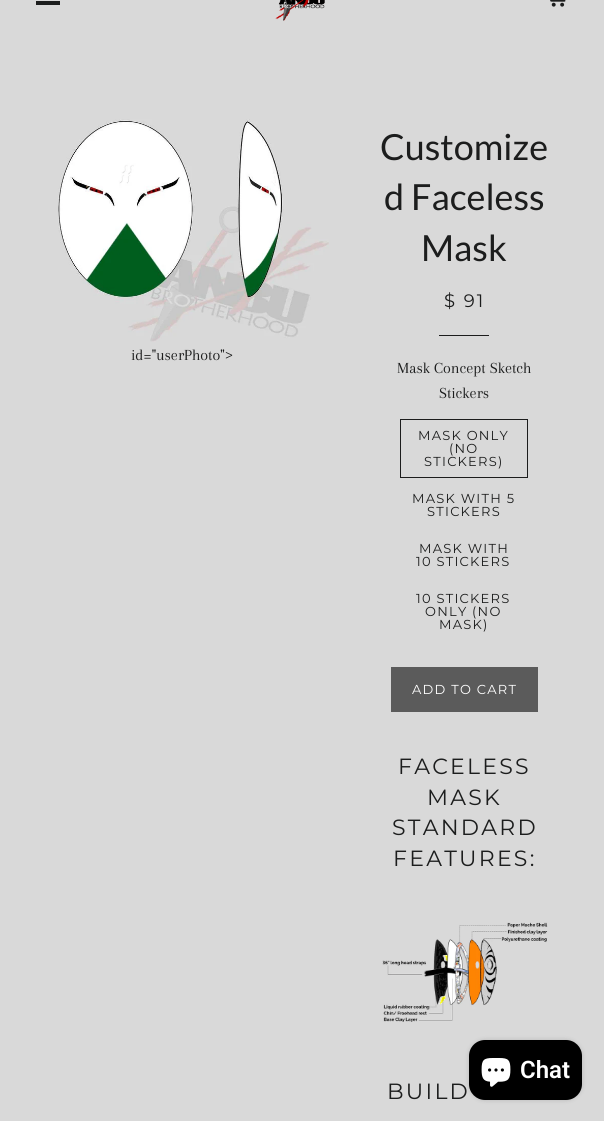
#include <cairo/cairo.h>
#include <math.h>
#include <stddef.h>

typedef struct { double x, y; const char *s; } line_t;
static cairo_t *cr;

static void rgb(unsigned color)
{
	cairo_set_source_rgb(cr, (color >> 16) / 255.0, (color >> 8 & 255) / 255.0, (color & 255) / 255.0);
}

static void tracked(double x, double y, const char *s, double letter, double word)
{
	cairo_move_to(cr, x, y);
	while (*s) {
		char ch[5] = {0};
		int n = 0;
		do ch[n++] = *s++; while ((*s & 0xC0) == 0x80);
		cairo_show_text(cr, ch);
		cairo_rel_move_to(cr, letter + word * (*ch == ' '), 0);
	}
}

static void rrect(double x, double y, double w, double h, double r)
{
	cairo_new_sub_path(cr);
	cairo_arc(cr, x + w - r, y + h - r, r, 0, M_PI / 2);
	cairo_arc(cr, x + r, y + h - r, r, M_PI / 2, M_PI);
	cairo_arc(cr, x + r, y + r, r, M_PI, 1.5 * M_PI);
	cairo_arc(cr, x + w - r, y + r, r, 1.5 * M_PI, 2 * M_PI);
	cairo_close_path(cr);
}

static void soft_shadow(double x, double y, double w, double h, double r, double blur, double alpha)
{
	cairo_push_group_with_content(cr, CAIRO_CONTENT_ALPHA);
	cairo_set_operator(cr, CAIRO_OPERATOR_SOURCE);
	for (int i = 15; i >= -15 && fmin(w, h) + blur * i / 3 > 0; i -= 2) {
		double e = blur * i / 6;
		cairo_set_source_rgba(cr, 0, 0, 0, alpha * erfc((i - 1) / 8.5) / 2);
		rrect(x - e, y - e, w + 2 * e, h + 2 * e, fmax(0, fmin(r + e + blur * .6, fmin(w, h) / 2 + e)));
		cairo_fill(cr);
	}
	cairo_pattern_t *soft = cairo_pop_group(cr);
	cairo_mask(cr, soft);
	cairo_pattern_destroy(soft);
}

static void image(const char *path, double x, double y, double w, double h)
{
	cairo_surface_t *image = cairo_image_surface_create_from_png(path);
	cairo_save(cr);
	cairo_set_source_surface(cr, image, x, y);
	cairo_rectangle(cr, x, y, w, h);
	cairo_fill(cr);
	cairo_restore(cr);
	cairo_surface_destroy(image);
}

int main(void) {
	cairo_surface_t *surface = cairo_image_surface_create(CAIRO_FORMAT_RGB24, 604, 1121);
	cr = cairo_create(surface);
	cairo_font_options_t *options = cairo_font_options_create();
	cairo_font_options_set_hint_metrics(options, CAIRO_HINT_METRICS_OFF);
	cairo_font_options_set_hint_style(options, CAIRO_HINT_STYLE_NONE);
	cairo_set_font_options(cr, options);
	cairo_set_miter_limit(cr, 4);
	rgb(0xd9d9d9);
	cairo_paint(cr);
	rgb(0x1c1d1d);
	cairo_rectangle(cr, 36, 1, 24, 4);
	cairo_fill(cr);
	image("img/1.png", 275, 0, 50, 21);
	image("img/2.png", 550, 0, 16, 7);
	image("img/3.png", 58, 119, 271, 223);
	cairo_rectangle(cr, 439, 335, 50, 1);
	cairo_fill(cr);
	cairo_rectangle(cr, 400.5, 419.5, 127, 58);
	cairo_set_line_width(cr, 1);
	cairo_stroke(cr);
	rgb(0x5b5b5b);
	cairo_rectangle(cr, 391, 667, 147, 45);
	cairo_fill(cr);
	image("img/4.png", 382, 922, 166, 100);
	rgb(0x000000);
	soft_shadow(469, 1040, 113, 60, 16, 2.5, 0.15);
	rgb(0x000000);
	rrect(469, 1040, 113, 60, 16);
	cairo_fill(cr);
	image("img/5.png", 481, 1058, 30, 29);
	cairo_select_font_face(cr, "Arapey", CAIRO_FONT_SLANT_NORMAL, CAIRO_FONT_WEIGHT_NORMAL);
	cairo_set_font_size(cr, 16);
	rgb(0x1c1d1d);
	cairo_move_to(cr, 131, 360);
	cairo_show_text(cr, "id=\"userPhoto\">");
	cairo_select_font_face(cr, "Lato", CAIRO_FONT_SLANT_NORMAL, CAIRO_FONT_WEIGHT_NORMAL);
	cairo_set_font_size(cr, 36);
	{
		static const line_t items[] = {
			{380, 160, "Customize"},
			{384, 210, "d Faceless"},
			{421, 261, "Mask"},
		};
		for (size_t i = 0; i < sizeof items / sizeof *items; i++) {
			cairo_move_to(cr, items[i].x, items[i].y);
			cairo_show_text(cr, items[i].s);
		}
	}
	cairo_select_font_face(cr, "Montserrat Thin", CAIRO_FONT_SLANT_NORMAL, CAIRO_FONT_WEIGHT_NORMAL);
	cairo_set_font_size(cr, 18);
	tracked(444, 307, "$ 91", 2, 0);
	cairo_select_font_face(cr, "Arapey", CAIRO_FONT_SLANT_NORMAL, CAIRO_FONT_WEIGHT_NORMAL);
	cairo_set_font_size(cr, 16);
	cairo_move_to(cr, 397, 373);
	cairo_show_text(cr, "Mask Concept Sketch");
	cairo_move_to(cr, 439, 398);
	cairo_show_text(cr, "Stickers");
	cairo_select_font_face(cr, "Montserrat Thin", CAIRO_FONT_SLANT_NORMAL, CAIRO_FONT_WEIGHT_NORMAL);
	cairo_set_font_size(cr, 13);
	{
		static const line_t items[] = {
			{418, 440, "MASK ONLY"},
			{449, 453, "(NO"},
			{424, 466, "STICKERS)"},
			{412, 503, "MASK WITH 5"},
			{427, 516, "STICKERS"},
			{419, 553, "MASK WITH"},
			{416, 566, "10 STICKERS"},
			{416, 603, "10 STICKERS"},
			{425, 616, "ONLY (NO"},
			{439, 629, "MASK)"},
		};
		for (size_t i = 0; i < sizeof items / sizeof *items; i++) {
			tracked(items[i].x, items[i].y, items[i].s, 1.25, 0);
		}
	}
	rgb(0xffffff);
	tracked(412, 694, "ADD TO CART", 1.25, 0);
	cairo_set_font_size(cr, 22);
	rgb(0x1c1d1d);
	{
		static const line_t items[] = {
			{398, 774, "FACELESS"},
			{427, 805, "MASK"},
			{392, 835, "STANDARD"},
			{393, 866, "FEATURES:"},
			{387, 1099, "BUILD"},
		};
		for (size_t i = 0; i < sizeof items / sizeof *items; i++) {
			tracked(items[i].x, items[i].y, items[i].s, 2.25, 0);
		}
	}
	cairo_select_font_face(cr, "Roboto SemiBold", CAIRO_FONT_SLANT_NORMAL, CAIRO_FONT_WEIGHT_NORMAL);
	cairo_set_font_size(cr, 24);
	rgb(0xffffff);
	cairo_move_to(cr, 520, 1078);
	cairo_show_text(cr, "Chat");
	cairo_surface_write_to_png(surface, "page.png");
	cairo_font_options_destroy(options);
	cairo_destroy(cr);
	cairo_surface_destroy(surface);
	return 0;
}
